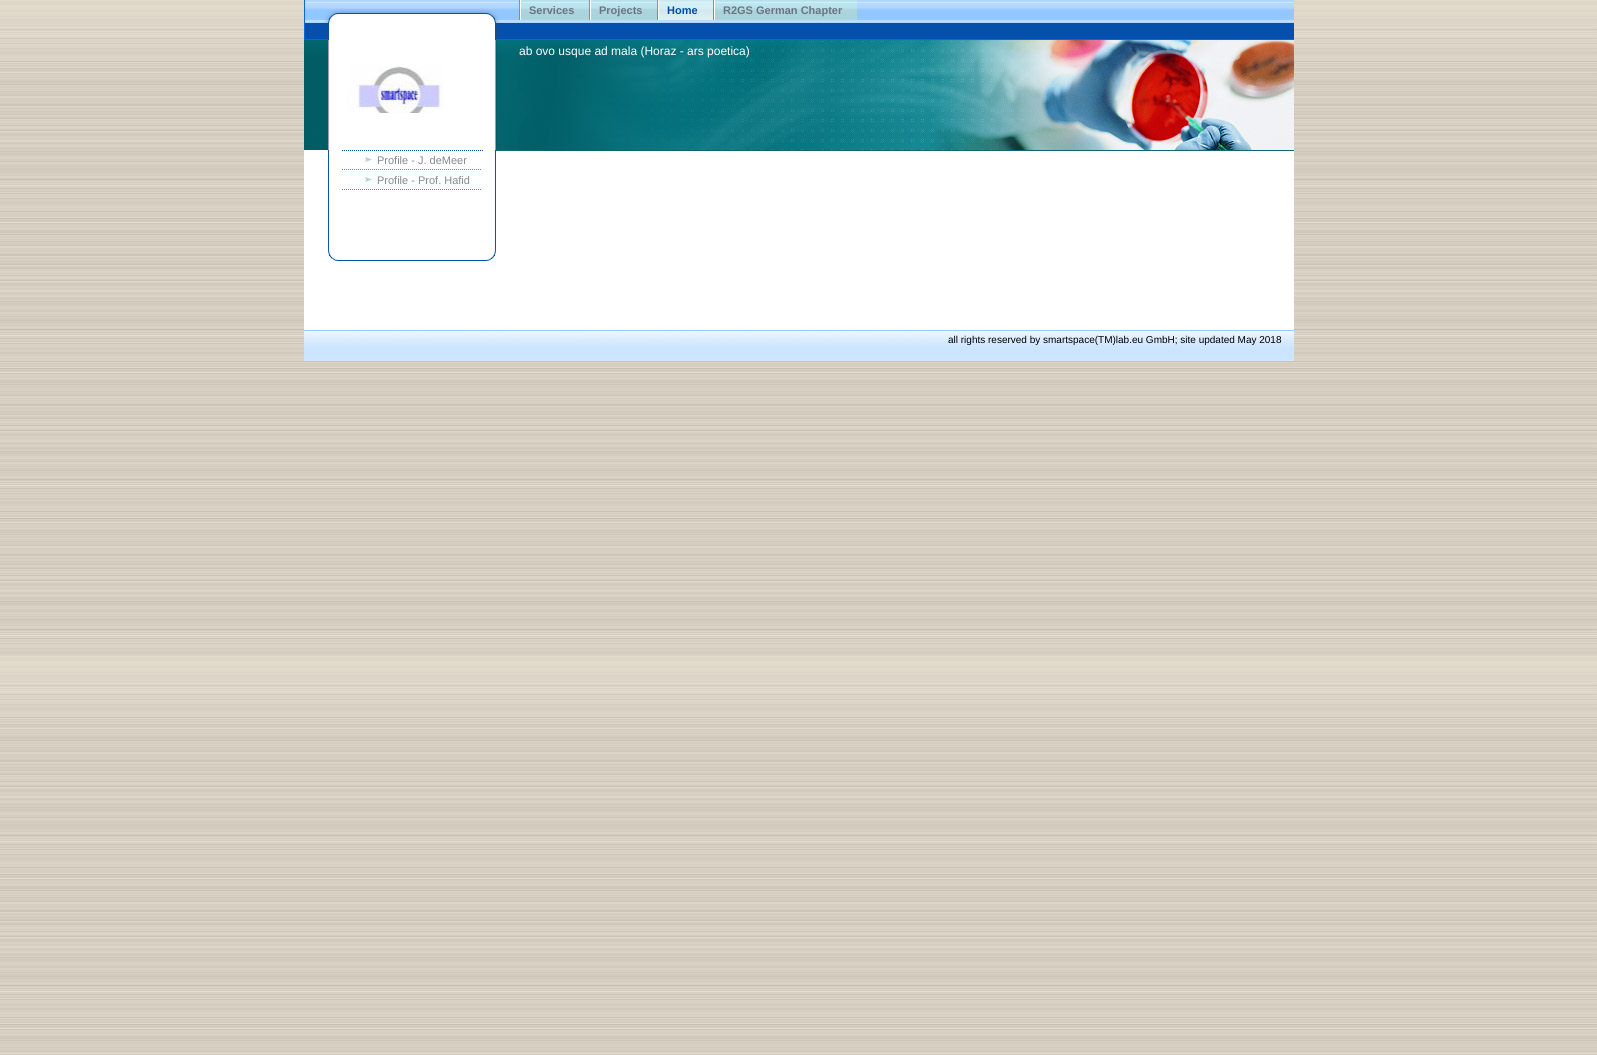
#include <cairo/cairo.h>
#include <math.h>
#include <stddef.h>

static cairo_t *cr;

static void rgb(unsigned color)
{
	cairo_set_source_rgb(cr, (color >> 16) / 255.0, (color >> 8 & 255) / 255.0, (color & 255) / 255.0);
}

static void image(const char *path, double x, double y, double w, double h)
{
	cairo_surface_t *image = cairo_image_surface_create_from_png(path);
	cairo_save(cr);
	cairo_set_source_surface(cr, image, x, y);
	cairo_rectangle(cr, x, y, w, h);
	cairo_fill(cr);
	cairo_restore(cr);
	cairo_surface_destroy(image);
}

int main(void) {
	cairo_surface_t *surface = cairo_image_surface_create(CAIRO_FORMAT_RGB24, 1597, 1055);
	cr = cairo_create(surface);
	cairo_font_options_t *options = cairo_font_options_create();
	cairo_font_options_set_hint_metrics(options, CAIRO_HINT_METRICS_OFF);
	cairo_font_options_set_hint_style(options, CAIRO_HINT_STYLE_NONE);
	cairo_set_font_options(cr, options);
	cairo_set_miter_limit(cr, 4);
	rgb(0xffffff);
	cairo_paint(cr);
	image("img/1.png", 0, 0, 1597, 1055);
	image("img/2.png", 304, 0, 990, 40);
	image("img/3.png", 519, 0, 70, 20);
	image("img/4.png", 589, 0, 68, 20);
	image("img/5.png", 657, 0, 56, 20);
	image("img/6.png", 713, 0, 144, 20);
	image("img/7.png", 304, 40, 990, 111);
	image("img/8.png", 347, 64, 97, 49);
	image("img/9.png", 323, 150, 173, 1);
	rgb(0xffffff);
	cairo_rectangle(cr, 304, 151, 990, 179);
	cairo_fill(cr);
	image("img/10.png", 328, 151, 168, 79);
	image("img/11.png", 329, 151, 152, 19);
	image("img/11.png", 329, 171, 152, 19);
	image("img/12.png", 328, 230, 168, 31);
	image("img/13.png", 304, 330, 990, 31);
	cairo_select_font_face(cr, "Liberation Sans", CAIRO_FONT_SLANT_NORMAL, CAIRO_FONT_WEIGHT_BOLD);
	cairo_set_font_size(cr, 11);
	rgb(0x6b7581);
	cairo_move_to(cr, 529, 14);
	cairo_show_text(cr, "Services");
	cairo_move_to(cr, 599, 14);
	cairo_show_text(cr, "Projects");
	rgb(0x014ba5);
	cairo_move_to(cr, 667, 14);
	cairo_show_text(cr, "Home");
	rgb(0x6b7581);
	cairo_move_to(cr, 723, 14);
	cairo_show_text(cr, "R2GS German Chapter");
	cairo_select_font_face(cr, "Liberation Sans", CAIRO_FONT_SLANT_NORMAL, CAIRO_FONT_WEIGHT_NORMAL);
	cairo_set_font_size(cr, 12);
	rgb(0xffffff);
	cairo_move_to(cr, 519, 55);
	cairo_show_text(cr, "ab ovo usque ad mala (Horaz - ars poetica)");
	cairo_set_font_size(cr, 11);
	rgb(0x858a90);
	cairo_move_to(cr, 377, 164);
	cairo_show_text(cr, "Profile - J. deMeer");
	cairo_move_to(cr, 377, 184);
	cairo_show_text(cr, "Profile - Prof. Hafid");
	cairo_set_font_size(cr, 10);
	rgb(0x000000);
	cairo_move_to(cr, 948, 343);
	cairo_show_text(cr, "all rights reserved by smartspace(TM)lab.eu GmbH; site updated May 2018");
	cairo_surface_write_to_png(surface, "page.png");
	cairo_font_options_destroy(options);
	cairo_destroy(cr);
	cairo_surface_destroy(surface);
	return 0;
}
